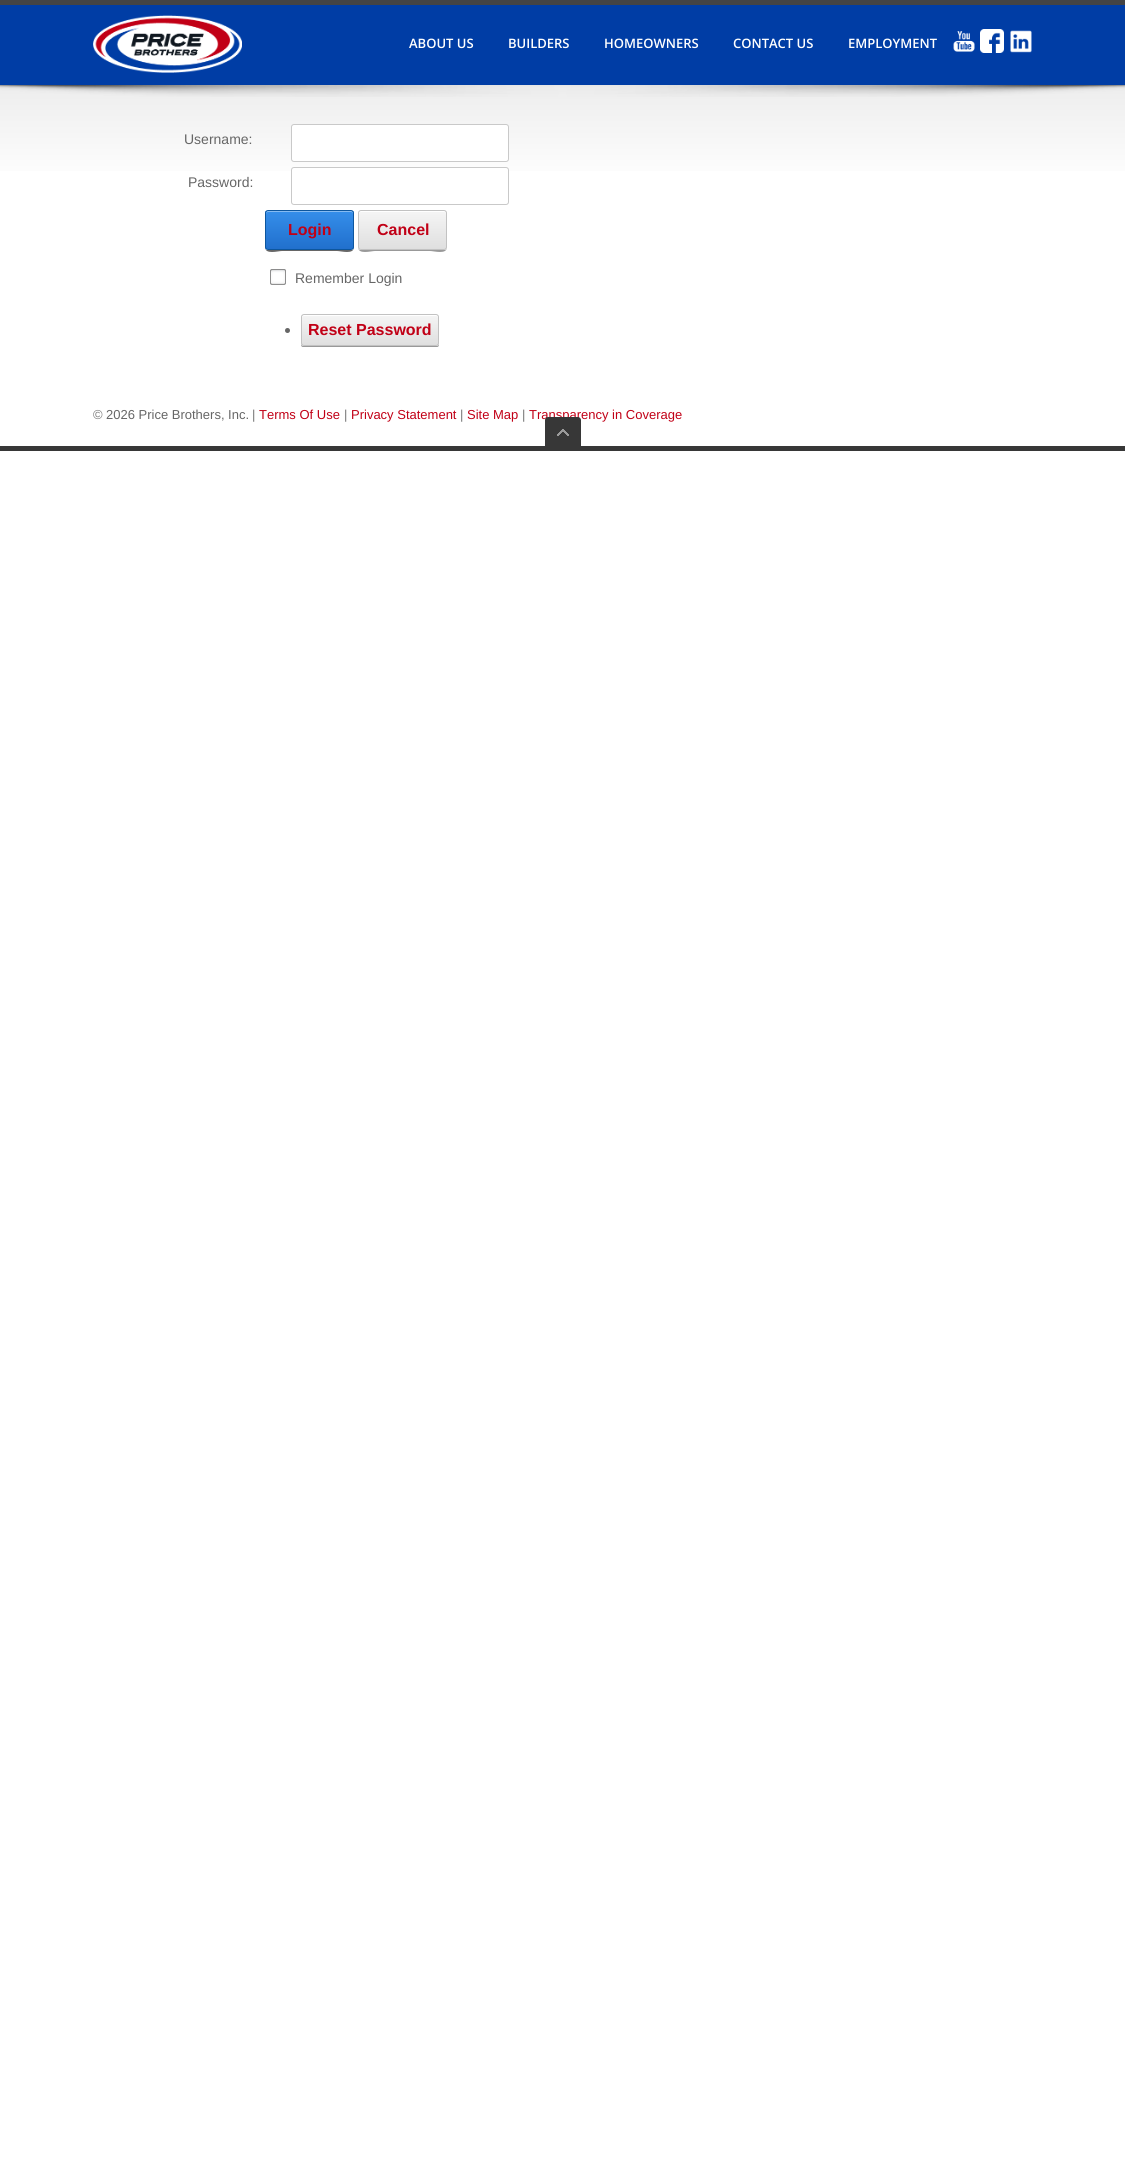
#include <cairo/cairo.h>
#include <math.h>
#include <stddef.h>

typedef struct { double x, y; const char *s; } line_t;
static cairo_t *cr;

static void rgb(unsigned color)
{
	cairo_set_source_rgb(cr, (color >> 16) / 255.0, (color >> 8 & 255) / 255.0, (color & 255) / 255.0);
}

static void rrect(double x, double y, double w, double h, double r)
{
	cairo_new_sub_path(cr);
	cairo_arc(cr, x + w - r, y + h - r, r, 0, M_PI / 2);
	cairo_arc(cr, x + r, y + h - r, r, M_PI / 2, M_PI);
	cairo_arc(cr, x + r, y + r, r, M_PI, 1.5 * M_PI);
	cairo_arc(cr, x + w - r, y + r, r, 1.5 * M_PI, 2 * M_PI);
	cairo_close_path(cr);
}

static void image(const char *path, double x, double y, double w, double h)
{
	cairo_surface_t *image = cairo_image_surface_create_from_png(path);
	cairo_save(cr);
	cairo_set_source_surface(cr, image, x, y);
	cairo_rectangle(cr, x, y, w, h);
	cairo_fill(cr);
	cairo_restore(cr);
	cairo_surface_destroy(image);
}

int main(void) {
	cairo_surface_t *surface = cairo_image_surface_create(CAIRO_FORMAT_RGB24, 1125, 2161);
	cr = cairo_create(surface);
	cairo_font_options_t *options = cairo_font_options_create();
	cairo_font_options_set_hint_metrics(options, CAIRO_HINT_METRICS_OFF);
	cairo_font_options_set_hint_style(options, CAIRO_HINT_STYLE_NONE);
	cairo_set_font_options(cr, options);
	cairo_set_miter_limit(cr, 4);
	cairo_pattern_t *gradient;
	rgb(0xffffff);
	cairo_paint(cr);
	rgb(0x003da5);
	cairo_rectangle(cr, 0, 5, 1125, 80);
	cairo_fill(cr);
	rgb(0x444444);
	cairo_rectangle(cr, 0, 0, 1125, 5);
	cairo_fill(cr);
	image("img/1.png", 93, 15, 149, 58);
	image("img/2.png", 953, 31, 22, 21);
	image("img/3.png", 980, 29, 24, 24);
	image("img/4.png", 1010, 30, 22, 23);
	gradient = cairo_pattern_create_linear(563, 85, 563, 185);
	cairo_pattern_add_color_stop_rgba(gradient, 0, 0.929, 0.929, 0.929, 1);
	cairo_pattern_add_color_stop_rgba(gradient, 1, 1, 1, 1, 1);
	cairo_set_source(cr, gradient);
	cairo_pattern_destroy(gradient);
	cairo_rectangle(cr, 0, 85, 1125, 86);
	cairo_fill(cr);
	image("img/5.png", 0, 85, 1125, 12);
	rgb(0xffffff);
	rrect(291.5, 124.5, 217, 37, 2.5);
	cairo_fill_preserve(cr);
	rgb(0xc9c9c9);
	cairo_set_line_width(cr, 1);
	cairo_stroke(cr);
	rgb(0xffffff);
	rrect(291.5, 167.5, 217, 37, 2.5);
	cairo_fill_preserve(cr);
	rgb(0xc9c9c9);
	cairo_stroke(cr);
	rgb(0x666666);
	cairo_new_path(cr);
	cairo_move_to(cr, 265, 247);
	cairo_curve_to(cr, 265, 255, 278, 251, 282, 251);
	cairo_line_to(cr, 337, 251);
	cairo_curve_to(cr, 341, 251, 354, 255, 354, 247);
	cairo_curve_to(cr, 354, 249, 353, 250, 351, 250);
	cairo_line_to(cr, 268, 250);
	cairo_curve_to(cr, 266, 250, 265, 249, 265, 247);
	cairo_close_path(cr);
	cairo_fill(cr);
	cairo_save(cr);
	rrect(265, 210, 89, 40, 3);
	cairo_clip(cr);
	gradient = cairo_pattern_create_linear(310, 211, 310, 249);
	cairo_pattern_add_color_stop_rgba(gradient, 0, 0.208, 0.557, 0.918, 1);
	cairo_pattern_add_color_stop_rgba(gradient, 1, 0.129, 0.439, 0.804, 1);
	cairo_set_source(cr, gradient);
	cairo_pattern_destroy(gradient);
	cairo_rectangle(cr, 265, 211, 89, 38);
	cairo_fill(cr);
	cairo_restore(cr);
	cairo_set_source_rgba(cr, 1, 1, 1, 0.4);
	cairo_new_path(cr);
	cairo_move_to(cr, 268, 212);
	cairo_line_to(cr, 351, 212);
	cairo_curve_to(cr, 352, 212, 353, 213, 353, 214);
	cairo_curve_to(cr, 353, 207, 340, 211, 337, 211);
	cairo_line_to(cr, 282, 211);
	cairo_curve_to(cr, 279, 211, 266, 207, 266, 214);
	cairo_curve_to(cr, 266, 213, 267, 212, 268, 212);
	cairo_close_path(cr);
	cairo_fill(cr);
	rrect(265.5, 210.5, 88, 39, 2.5);
	rgb(0x0d569e);
	cairo_stroke(cr);
	rgb(0x999999);
	cairo_new_path(cr);
	cairo_move_to(cr, 358, 247);
	cairo_curve_to(cr, 358, 255, 371, 251, 375, 251);
	cairo_line_to(cr, 430, 251);
	cairo_curve_to(cr, 434, 251, 447, 255, 447, 247);
	cairo_curve_to(cr, 447, 249, 446, 250, 444, 250);
	cairo_line_to(cr, 361, 250);
	cairo_curve_to(cr, 359, 250, 358, 249, 358, 247);
	cairo_close_path(cr);
	cairo_fill(cr);
	cairo_save(cr);
	rrect(358, 210, 89, 40, 3);
	cairo_clip(cr);
	gradient = cairo_pattern_create_linear(403, 211, 403, 249);
	cairo_pattern_add_color_stop_rgba(gradient, 0, 0.961, 0.961, 0.961, 1);
	cairo_pattern_add_color_stop_rgba(gradient, 1, 0.875, 0.875, 0.875, 1);
	cairo_set_source(cr, gradient);
	cairo_pattern_destroy(gradient);
	cairo_rectangle(cr, 358, 211, 89, 38);
	cairo_fill(cr);
	cairo_restore(cr);
	rgb(0xffffff);
	cairo_new_path(cr);
	cairo_move_to(cr, 361, 212);
	cairo_line_to(cr, 444, 212);
	cairo_curve_to(cr, 445, 212, 446, 213, 446, 214);
	cairo_curve_to(cr, 446, 207, 433, 211, 430, 211);
	cairo_line_to(cr, 375, 211);
	cairo_curve_to(cr, 372, 211, 359, 207, 359, 214);
	cairo_curve_to(cr, 359, 213, 360, 212, 361, 212);
	cairo_close_path(cr);
	cairo_fill(cr);
	rrect(358.5, 210.5, 88, 39, 2.5);
	rgb(0xc2c2c2);
	cairo_stroke(cr);
	image("img/6.png", 270, 269, 16, 16);
	rgb(0x666666);
	cairo_arc(cr, 287.5, 330.5, 2.5, 0, 2 * M_PI);
	cairo_fill(cr);
	rgb(0x999999);
	cairo_new_path(cr);
	cairo_move_to(cr, 301, 343);
	cairo_curve_to(cr, 301, 345, 301, 347, 303, 347);
	cairo_line_to(cr, 437, 347);
	cairo_curve_to(cr, 439, 347, 439, 345, 439, 343);
	cairo_curve_to(cr, 439, 345, 438, 346, 436, 346);
	cairo_line_to(cr, 304, 346);
	cairo_curve_to(cr, 302, 346, 301, 345, 301, 343);
	cairo_close_path(cr);
	cairo_fill(cr);
	cairo_save(cr);
	rrect(301, 314, 138, 32, 3);
	cairo_clip(cr);
	gradient = cairo_pattern_create_linear(370, 315, 370, 345);
	cairo_pattern_add_color_stop_rgba(gradient, 0, 0.961, 0.961, 0.961, 1);
	cairo_pattern_add_color_stop_rgba(gradient, 1, 0.875, 0.875, 0.875, 1);
	cairo_set_source(cr, gradient);
	cairo_pattern_destroy(gradient);
	cairo_rectangle(cr, 301, 315, 138, 30);
	cairo_fill(cr);
	cairo_restore(cr);
	rgb(0xffffff);
	cairo_new_path(cr);
	cairo_move_to(cr, 304, 316);
	cairo_line_to(cr, 436, 316);
	cairo_curve_to(cr, 437, 316, 438, 317, 438, 318);
	cairo_curve_to(cr, 438, 317, 438, 315, 436, 315);
	cairo_line_to(cr, 304, 315);
	cairo_curve_to(cr, 302, 315, 302, 317, 302, 318);
	cairo_curve_to(cr, 302, 317, 303, 316, 304, 316);
	cairo_close_path(cr);
	cairo_fill(cr);
	rrect(301.5, 314.5, 137, 31, 2.5);
	rgb(0xc2c2c2);
	cairo_stroke(cr);
	rgb(0x373737);
	cairo_rectangle(cr, 0, 446, 1125, 5);
	cairo_fill(cr);
	cairo_select_font_face(cr, "Open Sans SemiBold", CAIRO_FONT_SLANT_NORMAL, CAIRO_FONT_WEIGHT_NORMAL);
	cairo_set_font_size(cr, 13);
	rgb(0xffffff);
	{
		static const line_t items[] = {
			{409, 48, "ABOUT US"},
			{508, 48, "BUILDERS"},
			{604, 48, "HOMEOWNERS"},
			{733, 48, "CONTACT US"},
			{848, 48, "EMPLOYMENT"},
		};
		for (size_t i = 0; i < sizeof items / sizeof *items; i++) {
			cairo_move_to(cr, items[i].x, items[i].y);
			cairo_show_text(cr, items[i].s);
		}
	}
	cairo_select_font_face(cr, "Liberation Sans", CAIRO_FONT_SLANT_NORMAL, CAIRO_FONT_WEIGHT_NORMAL);
	cairo_set_font_size(cr, 14);
	rgb(0x666666);
	cairo_move_to(cr, 184, 144);
	cairo_show_text(cr, "Username:");
	cairo_move_to(cr, 188, 187);
	cairo_show_text(cr, "Password:");
	cairo_select_font_face(cr, "Liberation Sans", CAIRO_FONT_SLANT_NORMAL, CAIRO_FONT_WEIGHT_BOLD);
	cairo_set_font_size(cr, 16);
	rgb(0xc10016);
	cairo_move_to(cr, 288, 235);
	cairo_show_text(cr, "Login");
	cairo_move_to(cr, 377, 235);
	cairo_show_text(cr, "Cancel");
	cairo_select_font_face(cr, "Liberation Sans", CAIRO_FONT_SLANT_NORMAL, CAIRO_FONT_WEIGHT_NORMAL);
	cairo_set_font_size(cr, 14);
	rgb(0x666666);
	cairo_move_to(cr, 295, 283);
	cairo_show_text(cr, "Remember Login");
	cairo_select_font_face(cr, "Liberation Sans", CAIRO_FONT_SLANT_NORMAL, CAIRO_FONT_WEIGHT_BOLD);
	cairo_set_font_size(cr, 16);
	rgb(0xc10016);
	cairo_move_to(cr, 308, 335);
	cairo_show_text(cr, "Reset Password");
	cairo_select_font_face(cr, "Liberation Sans", CAIRO_FONT_SLANT_NORMAL, CAIRO_FONT_WEIGHT_NORMAL);
	cairo_set_font_size(cr, 13);
	rgb(0x777777);
	cairo_move_to(cr, 93, 419);
	cairo_show_text(cr, "©");
	rgb(0x666666);
	cairo_move_to(cr, 106, 419);
	cairo_show_text(cr, "2026 Price Brothers, Inc.");
	rgb(0x777777);
	cairo_move_to(cr, 252, 419);
	cairo_show_text(cr, "|");
	rgb(0xc10016);
	cairo_move_to(cr, 259, 419);
	cairo_show_text(cr, "Terms Of Use");
	rgb(0x777777);
	cairo_move_to(cr, 344, 419);
	cairo_show_text(cr, "|");
	rgb(0xc10016);
	cairo_move_to(cr, 351, 419);
	cairo_show_text(cr, "Privacy Statement");
	rgb(0x777777);
	cairo_move_to(cr, 460, 419);
	cairo_show_text(cr, "|");
	rgb(0xc10016);
	cairo_move_to(cr, 467, 419);
	cairo_show_text(cr, "Site Map");
	rgb(0x777777);
	cairo_move_to(cr, 522, 419);
	cairo_show_text(cr, "|");
	rgb(0xc10016);
	cairo_move_to(cr, 529, 419);
	cairo_show_text(cr, "Transparency in Coverage");
	rgb(0x373737);
	cairo_new_path(cr);
	cairo_move_to(cr, 548, 417);
	cairo_line_to(cr, 578, 417);
	cairo_curve_to(cr, 579.5, 417, 581, 418.5, 581, 420);
	cairo_line_to(cr, 581, 446);
	cairo_line_to(cr, 545, 446);
	cairo_line_to(cr, 545, 420);
	cairo_curve_to(cr, 545, 418.5, 546.5, 417, 548, 417);
	cairo_close_path(cr);
	cairo_fill(cr);
	image("img/7.png", 557, 429, 12, 7);
	cairo_surface_write_to_png(surface, "page.png");
	cairo_font_options_destroy(options);
	cairo_destroy(cr);
	cairo_surface_destroy(surface);
	return 0;
}
